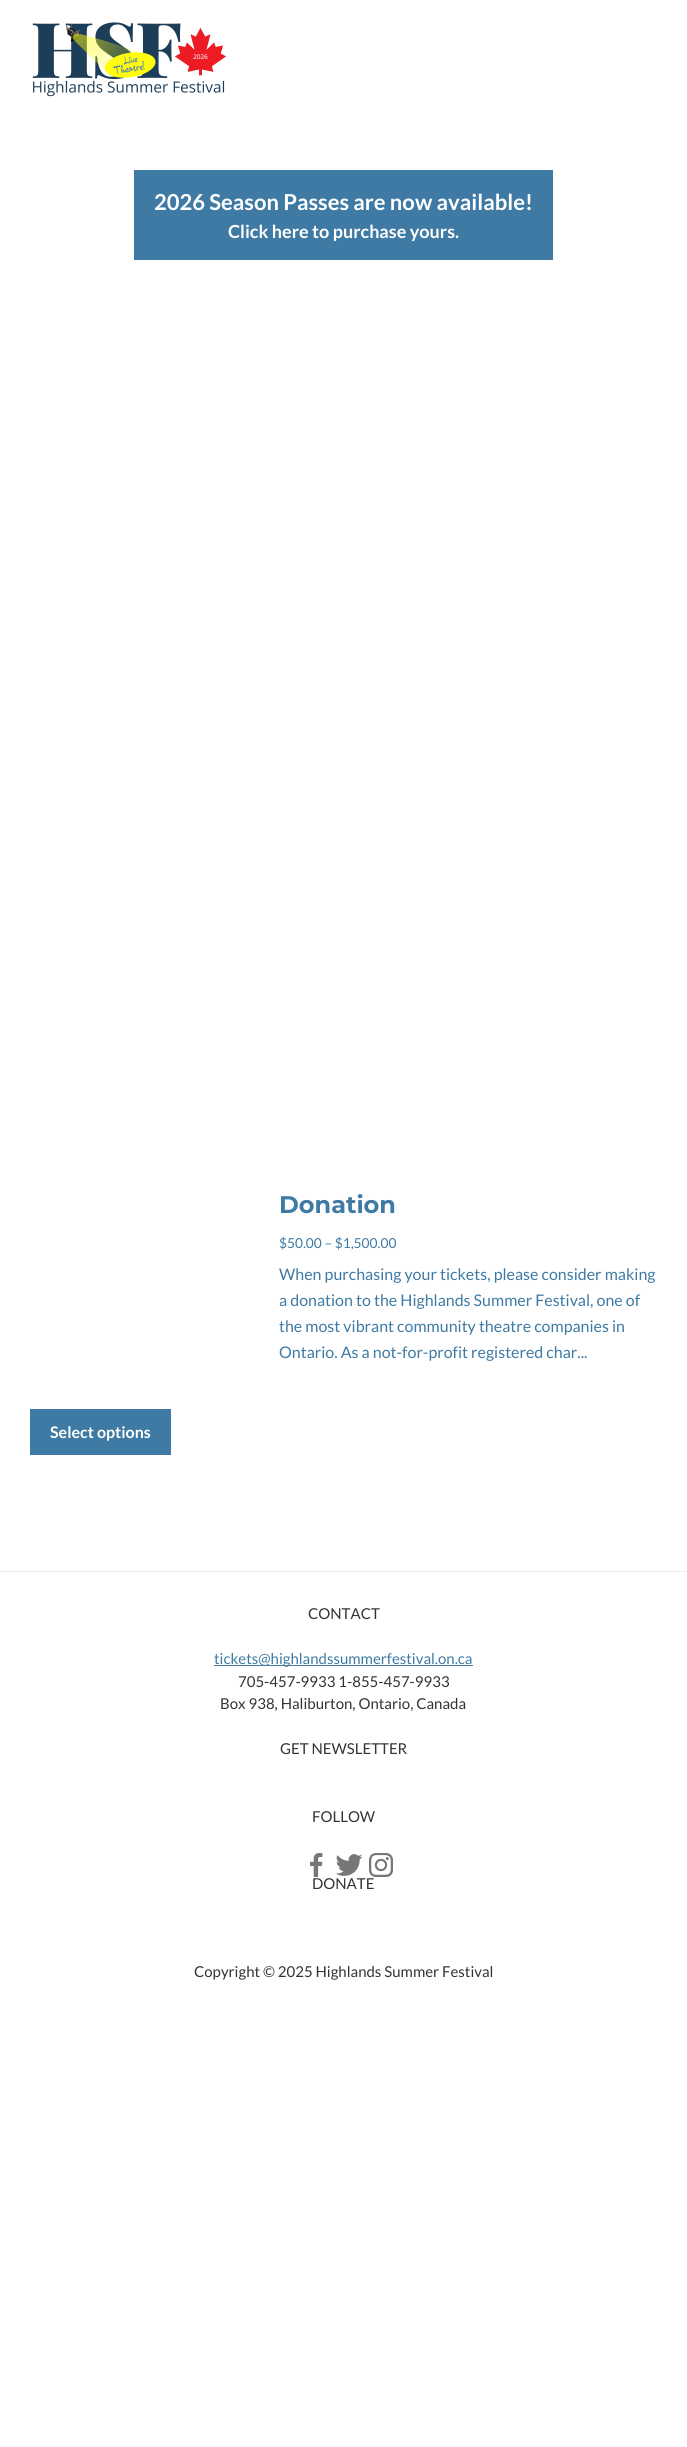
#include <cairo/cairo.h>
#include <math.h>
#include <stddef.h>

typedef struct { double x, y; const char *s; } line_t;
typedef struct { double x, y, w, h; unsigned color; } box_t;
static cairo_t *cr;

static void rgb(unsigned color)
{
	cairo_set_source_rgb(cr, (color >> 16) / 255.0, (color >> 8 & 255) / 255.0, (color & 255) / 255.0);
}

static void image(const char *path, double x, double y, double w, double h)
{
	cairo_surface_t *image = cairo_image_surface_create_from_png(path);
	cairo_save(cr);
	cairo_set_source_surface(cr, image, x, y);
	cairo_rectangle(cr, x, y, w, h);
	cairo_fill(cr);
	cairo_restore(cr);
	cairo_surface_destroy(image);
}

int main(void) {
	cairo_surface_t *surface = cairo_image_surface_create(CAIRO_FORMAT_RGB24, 687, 2447);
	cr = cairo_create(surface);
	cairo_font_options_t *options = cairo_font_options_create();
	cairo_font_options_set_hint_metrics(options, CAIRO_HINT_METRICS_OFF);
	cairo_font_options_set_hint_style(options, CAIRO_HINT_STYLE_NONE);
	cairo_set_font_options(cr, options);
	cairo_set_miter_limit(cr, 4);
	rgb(0xffffff);
	cairo_paint(cr);
	image("img/1.png", 32, 22, 194, 75);
	{
		static const box_t items[] = {
			{134, 170, 419, 90, 0x3e7aa3},
			{30, 1409, 141, 46, 0x3e7aa3},
			{0, 1571, 687, 1, 0xeeeeee},
			{214, 1665, 259, 1, 0x3e7aa3},
		};
		for (size_t i = 0; i < sizeof items / sizeof *items; i++) {
			rgb(items[i].color);
			cairo_rectangle(cr, items[i].x, items[i].y, items[i].w, items[i].h);
			cairo_fill(cr);
		}
	}
	image("img/2.png", 310, 1853, 13, 24);
	image("img/3.png", 335, 1854, 28, 22);
	image("img/4.png", 369, 1853, 24, 24);
	cairo_select_font_face(cr, "Lato", CAIRO_FONT_SLANT_NORMAL, CAIRO_FONT_WEIGHT_BOLD);
	cairo_set_font_size(cr, 22);
	rgb(0xffffff);
	cairo_move_to(cr, 154, 210);
	cairo_show_text(cr, "2026 Season Passes are now available!");
	cairo_set_font_size(cr, 18);
	cairo_move_to(cr, 228, 238);
	cairo_show_text(cr, "Click here to purchase yours.");
	cairo_select_font_face(cr, "Montserrat", CAIRO_FONT_SLANT_NORMAL, CAIRO_FONT_WEIGHT_BOLD);
	cairo_set_font_size(cr, 24);
	rgb(0x3e7aa3);
	cairo_move_to(cr, 279, 1213);
	cairo_show_text(cr, "Donation");
	cairo_select_font_face(cr, "Lato", CAIRO_FONT_SLANT_NORMAL, CAIRO_FONT_WEIGHT_NORMAL);
	cairo_set_font_size(cr, 13.75);
	cairo_move_to(cr, 279, 1248);
	cairo_show_text(cr, "$50.00 – $1,500.00");
	cairo_set_font_size(cr, 16);
	{
		static const line_t items[] = {
			{279, 1280, "When purchasing your tickets, please consider making"},
			{279, 1306, "a donation to the Highlands Summer Festival, one of"},
			{279, 1332, "the most vibrant community theatre companies in"},
			{279, 1358, "Ontario. As a not-for-profit registered char..."},
		};
		for (size_t i = 0; i < sizeof items / sizeof *items; i++) {
			cairo_move_to(cr, items[i].x, items[i].y);
			cairo_show_text(cr, items[i].s);
		}
	}
	cairo_select_font_face(cr, "Lato", CAIRO_FONT_SLANT_NORMAL, CAIRO_FONT_WEIGHT_BOLD);
	rgb(0xffffff);
	cairo_move_to(cr, 50, 1438);
	cairo_show_text(cr, "Select options");
	cairo_select_font_face(cr, "Lato", CAIRO_FONT_SLANT_NORMAL, CAIRO_FONT_WEIGHT_NORMAL);
	cairo_set_font_size(cr, 15);
	rgb(0x333333);
	cairo_move_to(cr, 308, 1619);
	cairo_show_text(cr, "CONTACT");
	rgb(0x3e7aa3);
	cairo_move_to(cr, 214, 1664);
	cairo_show_text(cr, "tickets@highlandssummerfestival.on.ca");
	rgb(0x333333);
	{
		static const line_t items[] = {
			{238, 1687, "705-457-9933 1-855-457-9933"},
			{220, 1709, "Box 938, Haliburton, Ontario, Canada"},
			{280, 1754, "GET NEWSLETTER"},
			{312, 1822, "FOLLOW"},
			{312, 1889, "DONATE"},
			{194, 1977, "Copyright © 2025 Highlands Summer Festival"},
		};
		for (size_t i = 0; i < sizeof items / sizeof *items; i++) {
			cairo_move_to(cr, items[i].x, items[i].y);
			cairo_show_text(cr, items[i].s);
		}
	}
	cairo_surface_write_to_png(surface, "page.png");
	cairo_font_options_destroy(options);
	cairo_destroy(cr);
	cairo_surface_destroy(surface);
	return 0;
}
